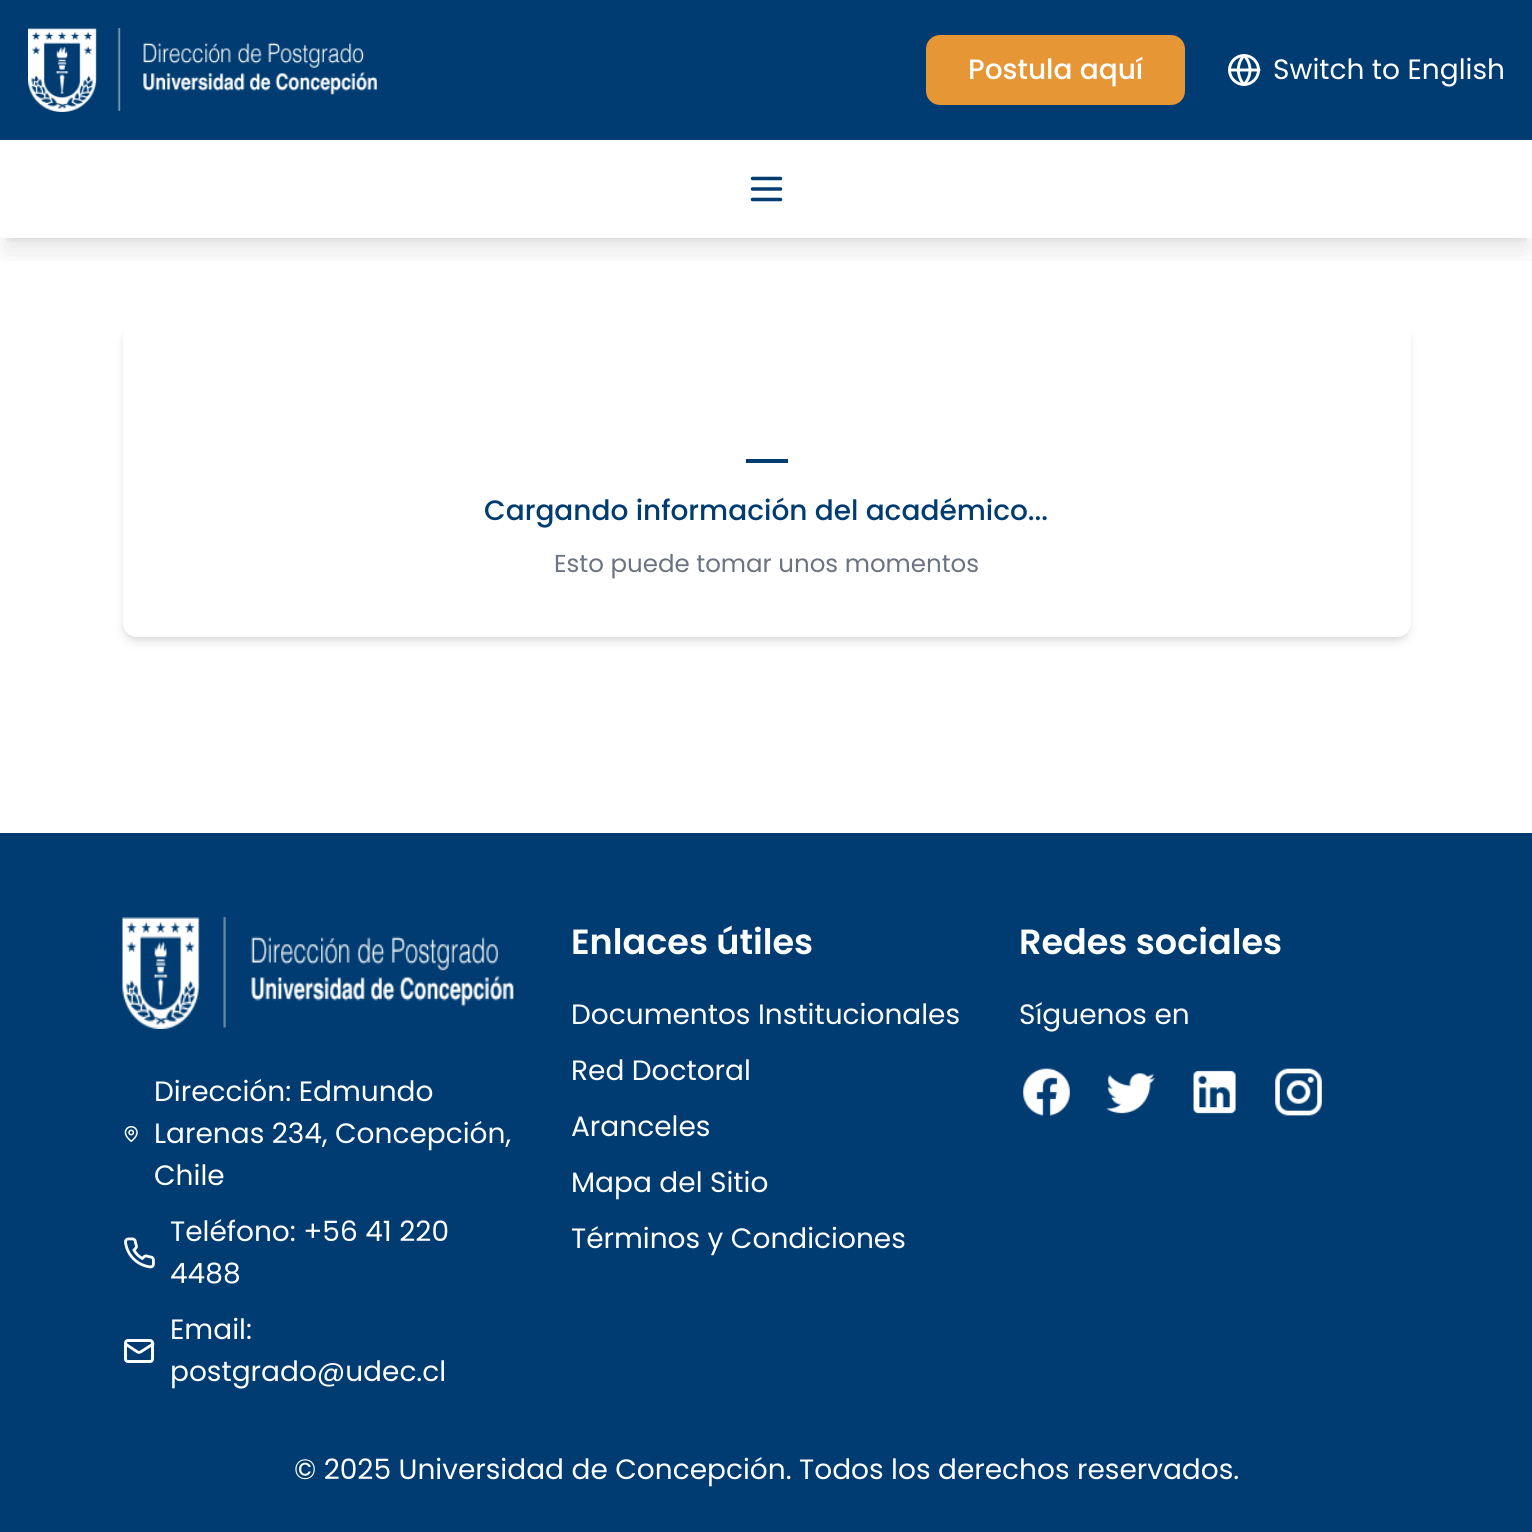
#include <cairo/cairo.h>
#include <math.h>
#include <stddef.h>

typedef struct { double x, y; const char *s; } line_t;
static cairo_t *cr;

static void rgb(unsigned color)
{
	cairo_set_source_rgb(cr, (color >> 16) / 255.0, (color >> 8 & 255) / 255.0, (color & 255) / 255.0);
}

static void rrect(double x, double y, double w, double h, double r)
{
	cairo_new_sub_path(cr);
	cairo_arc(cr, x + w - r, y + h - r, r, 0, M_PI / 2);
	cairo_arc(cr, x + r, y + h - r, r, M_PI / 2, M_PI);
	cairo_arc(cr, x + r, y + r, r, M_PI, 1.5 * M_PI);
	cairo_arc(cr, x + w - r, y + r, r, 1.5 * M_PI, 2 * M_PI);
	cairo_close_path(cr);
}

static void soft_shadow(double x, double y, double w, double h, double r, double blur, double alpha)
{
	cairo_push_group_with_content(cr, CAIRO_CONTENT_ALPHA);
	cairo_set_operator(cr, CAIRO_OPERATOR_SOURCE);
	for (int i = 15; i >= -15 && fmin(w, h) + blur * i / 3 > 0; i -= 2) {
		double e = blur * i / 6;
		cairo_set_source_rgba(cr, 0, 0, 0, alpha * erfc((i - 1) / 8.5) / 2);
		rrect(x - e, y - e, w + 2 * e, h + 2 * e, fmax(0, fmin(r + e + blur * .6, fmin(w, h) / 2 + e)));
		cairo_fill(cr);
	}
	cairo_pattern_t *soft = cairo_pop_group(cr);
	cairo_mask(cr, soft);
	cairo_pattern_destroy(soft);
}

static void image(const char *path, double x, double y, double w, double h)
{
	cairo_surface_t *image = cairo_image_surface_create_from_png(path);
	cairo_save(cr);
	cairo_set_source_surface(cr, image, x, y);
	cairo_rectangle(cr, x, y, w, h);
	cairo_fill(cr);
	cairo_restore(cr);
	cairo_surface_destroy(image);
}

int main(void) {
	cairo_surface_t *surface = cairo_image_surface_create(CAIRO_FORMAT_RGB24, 1532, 1532);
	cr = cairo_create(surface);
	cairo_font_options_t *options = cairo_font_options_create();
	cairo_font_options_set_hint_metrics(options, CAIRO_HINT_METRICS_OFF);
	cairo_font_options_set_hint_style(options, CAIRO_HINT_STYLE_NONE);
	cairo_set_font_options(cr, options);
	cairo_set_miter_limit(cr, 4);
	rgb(0xffffff);
	cairo_paint(cr);
	rgb(0x003c71);
	cairo_rectangle(cr, 0, 0, 1532, 140);
	cairo_fill(cr);
	image("img/1.png", 28, 28, 349, 84);
	rgb(0xe69635);
	rrect(926, 35, 259, 70, 14);
	cairo_fill(cr);
	cairo_arc(cr, 1244, 70, 14.5, 0, 2 * M_PI);
	rgb(0xffffff);
	cairo_set_line_width(cr, 2.9);
	cairo_stroke(cr);
	cairo_new_path(cr);
	cairo_move_to(cr, 1244, 55.5);
	cairo_curve_to(cr, 1236.5, 63.5, 1236.5, 76.5, 1244, 84.5);
	cairo_curve_to(cr, 1252, 76.5, 1252, 63.5, 1244, 55.5);
	cairo_move_to(cr, 1229.5, 70);
	cairo_line_to(cr, 1259, 70);
	cairo_set_line_cap(cr, CAIRO_LINE_CAP_ROUND);
	cairo_set_line_join(cr, CAIRO_LINE_JOIN_ROUND);
	cairo_stroke(cr);
	cairo_save(cr);
	cairo_rectangle(cr, 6, 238, 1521, 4);
	cairo_clip(cr);
	rgb(0x000000);
	soft_shadow(7, 154, 1519, 84, 0, 5, 0.1);
	cairo_restore(cr);
	cairo_save(cr);
	cairo_rectangle(cr, 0, 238, 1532, 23);
	cairo_clip(cr);
	rgb(0x000000);
	soft_shadow(5, 163, 1523, 87, 0, 13, 0.1);
	cairo_restore(cr);
	cairo_new_path(cr);
	cairo_move_to(cr, 752.5, 189);
	cairo_line_to(cr, 780.5, 189);
	cairo_move_to(cr, 752.5, 178.5);
	cairo_line_to(cr, 780.5, 178.5);
	cairo_move_to(cr, 752.5, 199.5);
	cairo_line_to(cr, 780.5, 199.5);
	rgb(0x003c71);
	cairo_set_line_width(cr, 3.5);
	cairo_stroke(cr);
	rgb(0x000000);
	soft_shadow(126, 329, 1281, 308, 11, 3.5, 0.1);
	soft_shadow(124, 331, 1285, 311, 12, 5, 0.1);
	rgb(0xffffff);
	rrect(123, 322, 1288, 315, 14);
	cairo_fill(cr);
	rgb(0x003c71);
	cairo_rectangle(cr, 746, 459, 42, 4);
	cairo_fill(cr);
	cairo_rectangle(cr, 0, 833, 1532, 699);
	cairo_fill(cr);
	image("img/2.png", 1023, 1068, 47, 48);
	image("img/3.png", 1106, 1073, 50, 41);
	image("img/4.png", 1193, 1070, 43, 44);
	image("img/5.png", 1275, 1068, 47, 48);
	image("img/6.png", 122, 917, 392, 112);
	image("img/7.png", 124, 1126, 14, 16);
	image("img/8.png", 124, 1237, 31, 32);
	rrect(125.5, 1340.5, 27, 21, 2.5);
	rgb(0xffffff);
	cairo_set_line_width(cr, 3);
	cairo_set_line_cap(cr, CAIRO_LINE_CAP_BUTT);
	cairo_set_line_join(cr, CAIRO_LINE_JOIN_MITER);
	cairo_stroke(cr);
	cairo_new_path(cr);
	cairo_move_to(cr, 153, 1344);
	cairo_line_to(cr, 140.5, 1352);
	cairo_curve_to(cr, 139.5, 1352.5, 138.5, 1352.5, 137.5, 1352);
	cairo_line_to(cr, 125.5, 1344);
	cairo_set_line_width(cr, 2.8);
	cairo_set_line_cap(cr, CAIRO_LINE_CAP_ROUND);
	cairo_set_line_join(cr, CAIRO_LINE_JOIN_ROUND);
	cairo_stroke(cr);
	cairo_select_font_face(cr, "Poppins Medium", CAIRO_FONT_SLANT_NORMAL, CAIRO_FONT_WEIGHT_NORMAL);
	cairo_set_font_size(cr, 28);
	cairo_move_to(cr, 968, 79);
	cairo_show_text(cr, "Postula aquí");
	cairo_select_font_face(cr, "Poppins", CAIRO_FONT_SLANT_NORMAL, CAIRO_FONT_WEIGHT_NORMAL);
	cairo_move_to(cr, 1273, 79);
	cairo_show_text(cr, "Switch to English");
	cairo_select_font_face(cr, "Poppins Medium", CAIRO_FONT_SLANT_NORMAL, CAIRO_FONT_WEIGHT_NORMAL);
	rgb(0x003c71);
	cairo_move_to(cr, 484, 520);
	cairo_show_text(cr, "Cargando información del académico...");
	cairo_select_font_face(cr, "Poppins", CAIRO_FONT_SLANT_NORMAL, CAIRO_FONT_WEIGHT_NORMAL);
	cairo_set_font_size(cr, 24.5);
	rgb(0x6b7280);
	cairo_move_to(cr, 554, 572);
	cairo_show_text(cr, "Esto puede tomar unos momentos");
	cairo_select_font_face(cr, "Poppins SemiBold", CAIRO_FONT_SLANT_NORMAL, CAIRO_FONT_WEIGHT_NORMAL);
	cairo_set_font_size(cr, 35);
	rgb(0xffffff);
	cairo_move_to(cr, 571, 954);
	cairo_show_text(cr, "Enlaces útiles");
	cairo_select_font_face(cr, "Poppins", CAIRO_FONT_SLANT_NORMAL, CAIRO_FONT_WEIGHT_NORMAL);
	cairo_set_font_size(cr, 28);
	{
		static const line_t items[] = {
			{571, 1024, "Documentos Institucionales"},
			{571, 1080, "Red Doctoral"},
			{571, 1136, "Aranceles"},
			{571, 1192, "Mapa del Sitio"},
			{571, 1248, "Términos y Condiciones"},
		};
		for (size_t i = 0; i < sizeof items / sizeof *items; i++) {
			cairo_move_to(cr, items[i].x, items[i].y);
			cairo_show_text(cr, items[i].s);
		}
	}
	cairo_select_font_face(cr, "Poppins SemiBold", CAIRO_FONT_SLANT_NORMAL, CAIRO_FONT_WEIGHT_NORMAL);
	cairo_set_font_size(cr, 35);
	cairo_move_to(cr, 1019, 954);
	cairo_show_text(cr, "Redes sociales");
	cairo_select_font_face(cr, "Poppins", CAIRO_FONT_SLANT_NORMAL, CAIRO_FONT_WEIGHT_NORMAL);
	cairo_set_font_size(cr, 28);
	{
		static const line_t items[] = {
			{1019, 1024, "Síguenos en"},
			{154, 1101, "Dirección: Edmundo"},
			{154, 1143, "Larenas 234, Concepción,"},
			{154, 1185, "Chile"},
			{170, 1241, "Teléfono: +56 41 220"},
			{170, 1283, "4488"},
			{170, 1339, "Email:"},
			{170, 1381, "postgrado@udec.cl"},
			{294, 1479, "© 2025 Universidad de Concepción. Todos los derechos reservados."},
		};
		for (size_t i = 0; i < sizeof items / sizeof *items; i++) {
			cairo_move_to(cr, items[i].x, items[i].y);
			cairo_show_text(cr, items[i].s);
		}
	}
	cairo_surface_write_to_png(surface, "page.png");
	cairo_font_options_destroy(options);
	cairo_destroy(cr);
	cairo_surface_destroy(surface);
	return 0;
}
